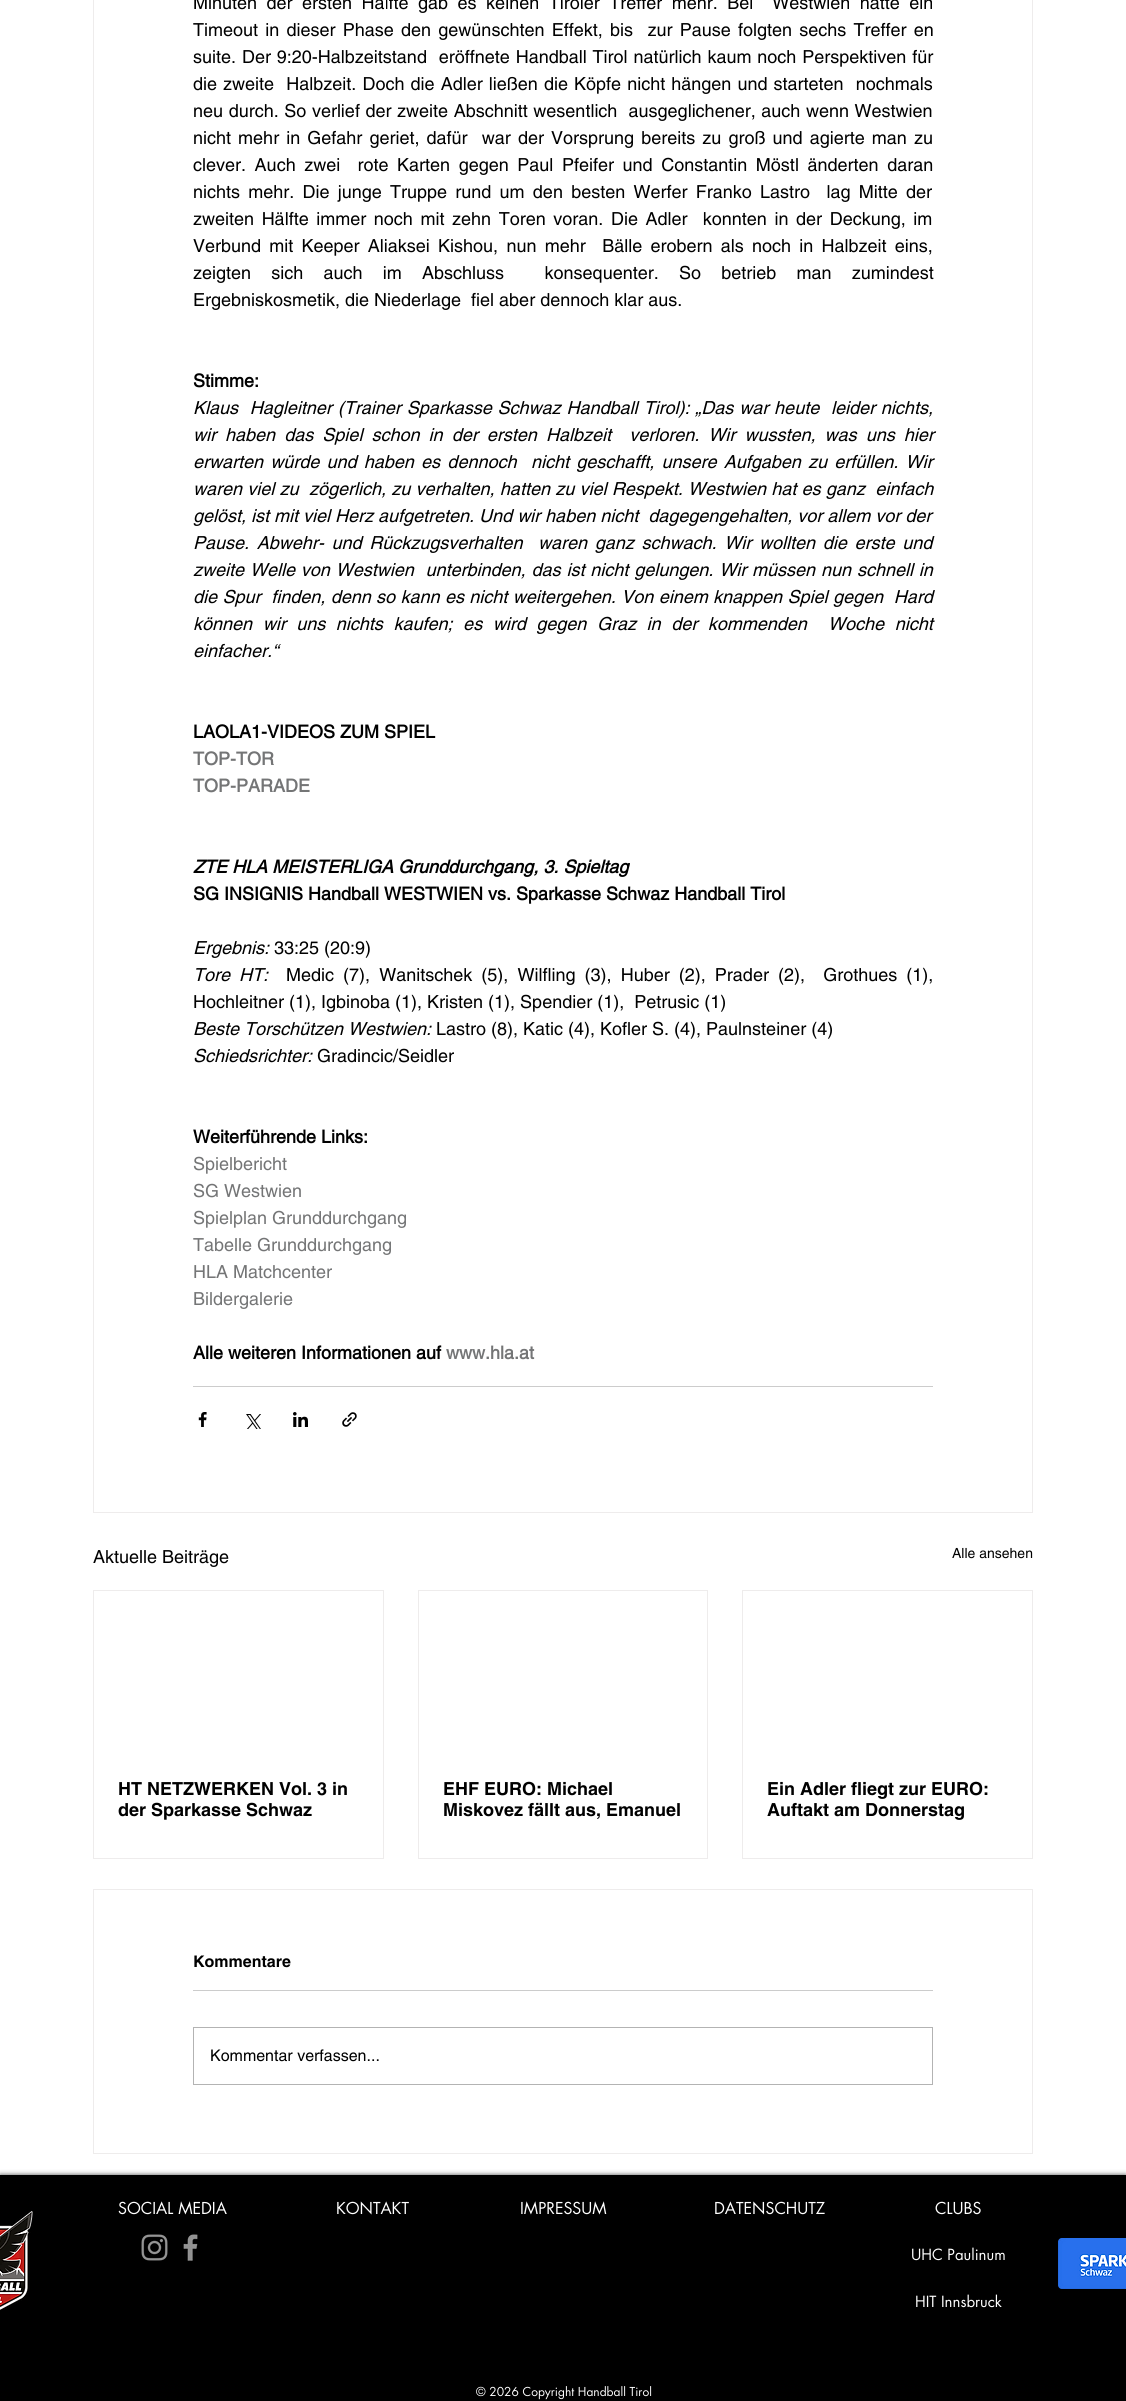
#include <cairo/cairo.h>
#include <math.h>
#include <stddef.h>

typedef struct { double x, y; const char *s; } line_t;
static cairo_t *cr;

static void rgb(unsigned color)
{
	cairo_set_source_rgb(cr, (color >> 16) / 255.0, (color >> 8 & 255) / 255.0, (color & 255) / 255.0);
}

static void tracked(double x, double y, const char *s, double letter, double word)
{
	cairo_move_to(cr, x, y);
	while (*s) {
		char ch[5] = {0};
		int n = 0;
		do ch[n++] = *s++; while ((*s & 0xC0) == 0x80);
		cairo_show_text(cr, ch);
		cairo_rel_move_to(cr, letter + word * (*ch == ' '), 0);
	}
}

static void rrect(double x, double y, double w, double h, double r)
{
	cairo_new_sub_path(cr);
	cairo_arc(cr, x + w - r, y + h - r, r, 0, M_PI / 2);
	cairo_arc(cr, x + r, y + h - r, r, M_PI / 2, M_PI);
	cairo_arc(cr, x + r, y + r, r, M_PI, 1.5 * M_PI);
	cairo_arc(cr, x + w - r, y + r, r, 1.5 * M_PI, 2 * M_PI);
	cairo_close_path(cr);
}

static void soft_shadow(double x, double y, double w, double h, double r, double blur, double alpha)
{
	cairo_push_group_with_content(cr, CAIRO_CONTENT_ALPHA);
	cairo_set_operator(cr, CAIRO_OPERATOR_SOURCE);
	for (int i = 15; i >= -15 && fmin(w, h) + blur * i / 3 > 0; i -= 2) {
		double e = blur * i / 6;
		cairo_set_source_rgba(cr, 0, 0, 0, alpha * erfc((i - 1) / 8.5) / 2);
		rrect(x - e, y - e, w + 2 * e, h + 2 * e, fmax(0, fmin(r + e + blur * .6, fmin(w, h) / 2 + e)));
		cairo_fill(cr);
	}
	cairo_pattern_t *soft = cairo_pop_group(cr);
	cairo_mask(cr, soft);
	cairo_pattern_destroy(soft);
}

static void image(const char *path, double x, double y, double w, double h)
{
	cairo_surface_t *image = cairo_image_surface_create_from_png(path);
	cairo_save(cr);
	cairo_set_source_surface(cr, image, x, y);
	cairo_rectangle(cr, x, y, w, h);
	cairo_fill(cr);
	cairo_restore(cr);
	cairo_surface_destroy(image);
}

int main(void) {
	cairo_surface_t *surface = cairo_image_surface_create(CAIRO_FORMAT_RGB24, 1126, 2401);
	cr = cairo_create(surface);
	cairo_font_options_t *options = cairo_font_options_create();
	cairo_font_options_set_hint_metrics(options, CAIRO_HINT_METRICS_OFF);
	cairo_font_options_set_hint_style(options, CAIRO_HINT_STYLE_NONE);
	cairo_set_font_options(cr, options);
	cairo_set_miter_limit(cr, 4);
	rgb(0xffffff);
	cairo_paint(cr);
	cairo_rectangle(cr, 93.5, -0.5, 939, 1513);
	rgb(0xeeecec);
	cairo_set_line_width(cr, 1);
	cairo_stroke(cr);
	rgb(0xcccccc);
	cairo_rectangle(cr, 193, 1386, 740, 1);
	cairo_fill(cr);
	image("img/1.png", 198, 1412, 9, 15);
	image("img/2.png", 246, 1414, 15, 15);
	image("img/3.png", 293, 1412, 15, 15);
	image("img/4.png", 342, 1412, 15, 15);
	cairo_rectangle(cr, 93.5, 1590.5, 290, 268);
	rgb(0xeeecec);
	cairo_stroke(cr);
	cairo_rectangle(cr, 418.5, 1590.5, 289, 268);
	cairo_stroke(cr);
	cairo_rectangle(cr, 742.5, 1590.5, 290, 268);
	cairo_stroke(cr);
	cairo_rectangle(cr, 93.5, 1889.5, 939, 264);
	cairo_stroke(cr);
	rgb(0xcccccc);
	cairo_rectangle(cr, 193, 1990, 740, 1);
	cairo_fill(cr);
	cairo_rectangle(cr, 193.5, 2027.5, 739, 57);
	rgb(0xb3b3b3);
	cairo_stroke(cr);
	rgb(0x000000);
	soft_shadow(0, 2175, 1126, 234, 0, 2.5, 0.7);
	rgb(0x000000);
	cairo_rectangle(cr, 0, 2175, 1126, 226);
	cairo_fill(cr);
	image("img/5.png", 0, 2211, 33, 99);
	image("img/6.png", 141, 2234, 27, 27);
	image("img/7.png", 183, 2234, 15, 27);
	image("img/8.png", 1058, 2238, 68, 51);
	cairo_select_font_face(cr, "helvetica", CAIRO_FONT_SLANT_NORMAL, CAIRO_FONT_WEIGHT_NORMAL);
	cairo_set_font_size(cr, 18);
	tracked(193, 9, "Minuten der ersten Hälfte gab es keinen Tiroler Treffer mehr. Bei  Westwien hatte ein", 0, 4.5);
	tracked(193, 36, "Timeout in dieser Phase den gewünschten Effekt, bis  zur Pause folgten sechs Treffer en", 0, 2.25);
	tracked(193, 63, "suite. Der 9:20-Halbzeitstand  eröffnete Handball Tirol natürlich kaum noch Perspektiven für", 0, 0.9);
	tracked(193, 90, "die zweite  Halbzeit. Doch die Adler ließen die Köpfe nicht hängen und starteten  nochmals", 0, 1.1);
	tracked(193, 117, "neu durch. So verlief der zweite Abschnitt wesentlich  ausgeglichener, auch wenn Westwien", 0, 0.6);
	tracked(193, 144, "nicht mehr in Gefahr geriet, dafür  war der Vorsprung bereits zu groß und agierte man zu", 0, 2.1);
	tracked(193, 171, "clever. Auch zwei  rote Karten gegen Paul Pfeifer und Constantin Möstl änderten daran", 0, 3.6);
	tracked(193, 198, "nichts mehr. Die junge Truppe rund um den besten Werfer Franko Lastro  lag Mitte der", 0, 3.25);
	tracked(193, 225, "zweiten Hälfte immer noch mit zehn Toren voran. Die Adler  konnten in der Deckung, im", 0, 2.6);
	tracked(193, 252, "Verbund mit Keeper Aliaksei Kishou, nun mehr  Bälle erobern als noch in Halbzeit eins,", 0, 3.25);
	tracked(193, 279, "zeigten sich auch im Abschluss  konsequenter. So betrieb man zumindest", 0, 15.25);
	cairo_move_to(cr, 193, 306);
	cairo_show_text(cr, "Ergebniskosmetik, die Niederlage  fiel aber dennoch klar aus.");
	cairo_select_font_face(cr, "helvetica", CAIRO_FONT_SLANT_NORMAL, CAIRO_FONT_WEIGHT_BOLD);
	cairo_move_to(cr, 193, 387);
	cairo_show_text(cr, "Stimme:");
	cairo_select_font_face(cr, "helvetica", CAIRO_FONT_SLANT_ITALIC, CAIRO_FONT_WEIGHT_NORMAL);
	tracked(193, 414, "Klaus  Hagleitner (Trainer Sparkasse Schwaz Handball Tirol): „Das war heute  leider nichts,", 0, 0.9);
	tracked(193, 441, "wir haben das Spiel schon in der ersten Halbzeit  verloren. Wir wussten, was uns hier", 0, 4.1);
	tracked(193, 468, "erwarten würde und haben es dennoch  nicht geschafft, unsere Aufgaben zu erfüllen. Wir", 0, 2.25);
	tracked(193, 495, "waren viel zu  zögerlich, zu verhalten, hatten zu viel Respekt. Westwien hat es ganz  einfach", 0, 0.25);
	cairo_move_to(cr, 193, 522);
	cairo_show_text(cr, "gelöst, ist mit viel Herz aufgetreten. Und wir haben nicht  dagegengehalten, vor allem vor der");
	tracked(193, 549, "Pause. Abwehr- und Rückzugsverhalten  waren ganz schwach. Wir wollten die erste und", 0, 2.75);
	tracked(193, 576, "zweite Welle von Westwien  unterbinden, das ist nicht gelungen. Wir müssen nun schnell in", 0, 0.9);
	tracked(193, 603, "die Spur  finden, denn so kann es nicht weitergehen. Von einem knappen Spiel gegen  Hard", 0, 0.4);
	tracked(193, 630, "können wir uns nichts kaufen; es wird gegen Graz in der kommenden  Woche nicht", 0, 5.6);
	cairo_move_to(cr, 193, 657);
	cairo_show_text(cr, "einfacher.“");
	cairo_select_font_face(cr, "helvetica", CAIRO_FONT_SLANT_NORMAL, CAIRO_FONT_WEIGHT_BOLD);
	cairo_move_to(cr, 193, 738);
	cairo_show_text(cr, "LAOLA1-VIDEOS ZUM SPIEL");
	rgb(0x747576);
	cairo_move_to(cr, 193, 765);
	cairo_show_text(cr, "TOP-TOR");
	cairo_move_to(cr, 193, 792);
	cairo_show_text(cr, "TOP-PARADE");
	cairo_select_font_face(cr, "helvetica", CAIRO_FONT_SLANT_ITALIC, CAIRO_FONT_WEIGHT_BOLD);
	rgb(0x000000);
	cairo_move_to(cr, 193, 873);
	cairo_show_text(cr, "ZTE HLA MEISTERLIGA Grunddurchgang, 3. Spieltag");
	cairo_select_font_face(cr, "helvetica", CAIRO_FONT_SLANT_NORMAL, CAIRO_FONT_WEIGHT_BOLD);
	cairo_move_to(cr, 193, 900);
	cairo_show_text(cr, "SG INSIGNIS Handball WESTWIEN vs. Sparkasse Schwaz Handball Tirol");
	cairo_select_font_face(cr, "helvetica", CAIRO_FONT_SLANT_ITALIC, CAIRO_FONT_WEIGHT_NORMAL);
	cairo_move_to(cr, 193, 954);
	cairo_show_text(cr, "Ergebnis:");
	cairo_select_font_face(cr, "helvetica", CAIRO_FONT_SLANT_NORMAL, CAIRO_FONT_WEIGHT_NORMAL);
	cairo_move_to(cr, 274, 954);
	cairo_show_text(cr, "33:25 (20:9)");
	cairo_select_font_face(cr, "helvetica", CAIRO_FONT_SLANT_ITALIC, CAIRO_FONT_WEIGHT_NORMAL);
	tracked(193, 981, "Tore HT:", 0, 4.1);
	cairo_select_font_face(cr, "helvetica", CAIRO_FONT_SLANT_NORMAL, CAIRO_FONT_WEIGHT_NORMAL);
	tracked(286, 981, "Medic (7), Wanitschek (5), Wilfling (3), Huber (2), Prader (2),  Grothues (1),", 0, 4.1);
	cairo_move_to(cr, 193, 1008);
	cairo_show_text(cr, "Hochleitner (1), Igbinoba (1), Kristen (1), Spendier (1),  Petrusic (1)");
	cairo_select_font_face(cr, "helvetica", CAIRO_FONT_SLANT_ITALIC, CAIRO_FONT_WEIGHT_NORMAL);
	cairo_move_to(cr, 193, 1035);
	cairo_show_text(cr, "Beste Torschützen Westwien:");
	cairo_select_font_face(cr, "helvetica", CAIRO_FONT_SLANT_NORMAL, CAIRO_FONT_WEIGHT_NORMAL);
	cairo_move_to(cr, 436, 1035);
	cairo_show_text(cr, "Lastro (8), Katic (4), Kofler S. (4), Paulnsteiner (4)");
	cairo_select_font_face(cr, "helvetica", CAIRO_FONT_SLANT_ITALIC, CAIRO_FONT_WEIGHT_NORMAL);
	cairo_move_to(cr, 193, 1062);
	cairo_show_text(cr, "Schiedsrichter:");
	cairo_select_font_face(cr, "helvetica", CAIRO_FONT_SLANT_NORMAL, CAIRO_FONT_WEIGHT_NORMAL);
	cairo_move_to(cr, 317, 1062);
	cairo_show_text(cr, "Gradincic/Seidler");
	cairo_select_font_face(cr, "helvetica", CAIRO_FONT_SLANT_NORMAL, CAIRO_FONT_WEIGHT_BOLD);
	cairo_move_to(cr, 193, 1143);
	cairo_show_text(cr, "Weiterführende Links:");
	cairo_select_font_face(cr, "helvetica", CAIRO_FONT_SLANT_NORMAL, CAIRO_FONT_WEIGHT_NORMAL);
	rgb(0x747576);
	{
		static const line_t items[] = {
			{193, 1170, "Spielbericht"},
			{193, 1197, "SG Westwien"},
			{193, 1224, "Spielplan Grunddurchgang"},
			{193, 1251, "Tabelle Grunddurchgang"},
			{193, 1278, "HLA Matchcenter"},
			{193, 1305, "Bildergalerie"},
		};
		for (size_t i = 0; i < sizeof items / sizeof *items; i++) {
			cairo_move_to(cr, items[i].x, items[i].y);
			cairo_show_text(cr, items[i].s);
		}
	}
	cairo_select_font_face(cr, "helvetica", CAIRO_FONT_SLANT_NORMAL, CAIRO_FONT_WEIGHT_BOLD);
	rgb(0x000000);
	cairo_move_to(cr, 193, 1359);
	cairo_show_text(cr, "Alle weiteren Informationen auf");
	rgb(0x747576);
	cairo_move_to(cr, 446, 1359);
	cairo_show_text(cr, "www.hla.at");
	cairo_select_font_face(cr, "helvetica", CAIRO_FONT_SLANT_NORMAL, CAIRO_FONT_WEIGHT_NORMAL);
	rgb(0x000000);
	cairo_move_to(cr, 93, 1563);
	cairo_show_text(cr, "Aktuelle Beiträge");
	cairo_set_font_size(cr, 14);
	cairo_move_to(cr, 952, 1558);
	cairo_show_text(cr, "Alle ansehen");
	cairo_select_font_face(cr, "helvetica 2", CAIRO_FONT_SLANT_NORMAL, CAIRO_FONT_WEIGHT_BOLD);
	cairo_set_font_size(cr, 18);
	{
		static const line_t items[] = {
			{118, 1795, "HT NETZWERKEN Vol. 3 in"},
			{118, 1816, "der Sparkasse Schwaz"},
			{443, 1795, "EHF EURO: Michael"},
			{443, 1816, "Miskovez fällt aus, Emanuel"},
			{767, 1795, "Ein Adler fliegt zur EURO:"},
			{767, 1816, "Auftakt am Donnerstag"},
		};
		for (size_t i = 0; i < sizeof items / sizeof *items; i++) {
			cairo_move_to(cr, items[i].x, items[i].y);
			cairo_show_text(cr, items[i].s);
		}
	}
	cairo_set_font_size(cr, 16);
	cairo_move_to(cr, 193, 1967);
	cairo_show_text(cr, "Kommentare");
	cairo_select_font_face(cr, "helvetica", CAIRO_FONT_SLANT_NORMAL, CAIRO_FONT_WEIGHT_NORMAL);
	cairo_move_to(cr, 210, 2061);
	cairo_show_text(cr, "Kommentar verfassen...");
	cairo_select_font_face(cr, "futura", CAIRO_FONT_SLANT_NORMAL, CAIRO_FONT_WEIGHT_NORMAL);
	rgb(0xffffff);
	{
		static const line_t items[] = {
			{118, 2214, "SOCIAL MEDIA"},
			{336, 2214, "KONTAKT"},
			{520, 2214, "IMPRESSUM"},
			{714, 2214, "DATENSCHUTZ"},
			{935, 2214, "CLUBS"},
		};
		for (size_t i = 0; i < sizeof items / sizeof *items; i++) {
			cairo_move_to(cr, items[i].x, items[i].y);
			cairo_show_text(cr, items[i].s);
		}
	}
	cairo_set_font_size(cr, 15);
	cairo_move_to(cr, 911, 2260);
	cairo_show_text(cr, "UHC Paulinum");
	cairo_move_to(cr, 915, 2307);
	cairo_show_text(cr, "HIT Innsbruck");
	cairo_set_font_size(cr, 12);
	cairo_move_to(cr, 476, 2396);
	cairo_show_text(cr, "© 2026 Copyright Handball Tirol");
	cairo_surface_write_to_png(surface, "page.png");
	cairo_font_options_destroy(options);
	cairo_destroy(cr);
	cairo_surface_destroy(surface);
	return 0;
}
